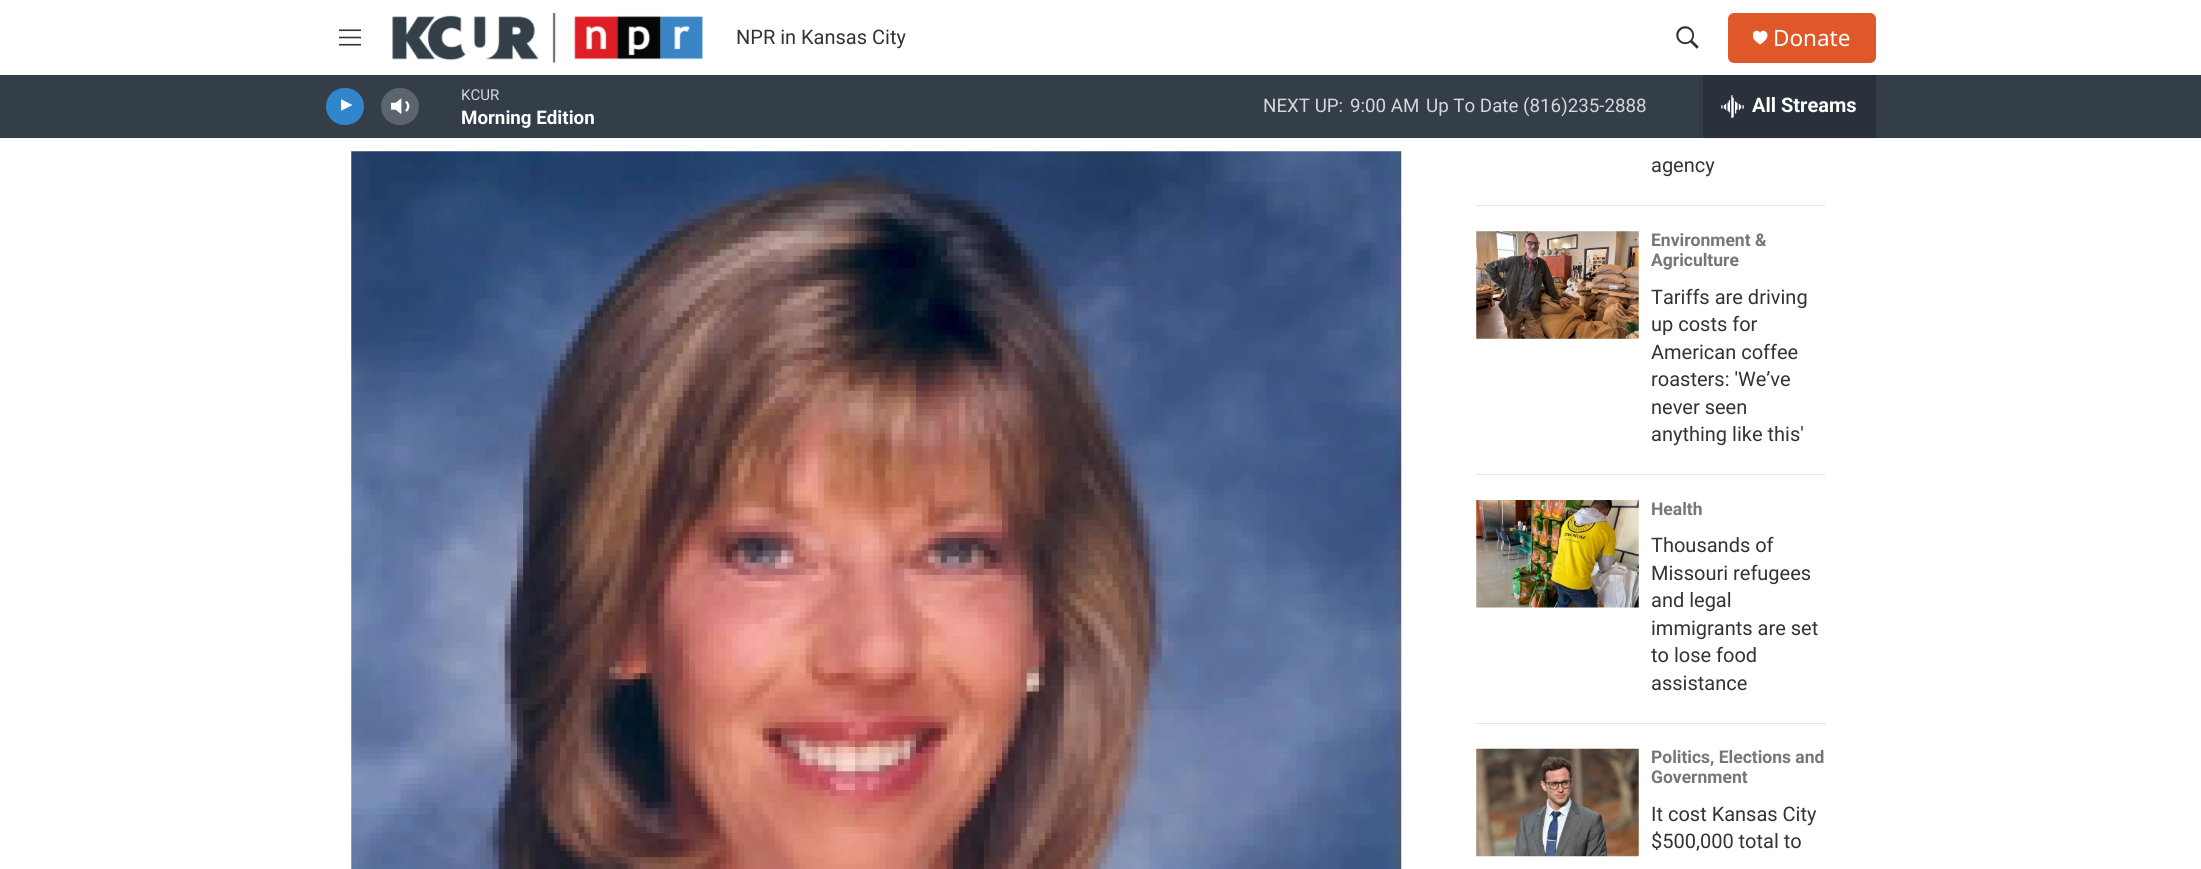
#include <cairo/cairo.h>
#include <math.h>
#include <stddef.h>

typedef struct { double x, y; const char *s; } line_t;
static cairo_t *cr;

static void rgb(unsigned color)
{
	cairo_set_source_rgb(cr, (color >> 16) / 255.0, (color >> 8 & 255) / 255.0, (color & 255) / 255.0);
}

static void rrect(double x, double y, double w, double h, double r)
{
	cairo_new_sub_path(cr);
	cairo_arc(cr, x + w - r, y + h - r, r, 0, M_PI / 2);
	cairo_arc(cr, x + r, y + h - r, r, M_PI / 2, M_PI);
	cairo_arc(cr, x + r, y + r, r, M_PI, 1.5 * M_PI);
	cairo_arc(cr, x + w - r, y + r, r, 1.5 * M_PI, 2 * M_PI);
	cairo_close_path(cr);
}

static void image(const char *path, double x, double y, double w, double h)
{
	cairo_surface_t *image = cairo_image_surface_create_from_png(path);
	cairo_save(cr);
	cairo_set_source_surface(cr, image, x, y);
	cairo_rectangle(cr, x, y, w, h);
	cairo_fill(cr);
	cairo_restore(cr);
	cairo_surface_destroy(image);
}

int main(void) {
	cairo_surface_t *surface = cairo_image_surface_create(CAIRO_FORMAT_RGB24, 2201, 869);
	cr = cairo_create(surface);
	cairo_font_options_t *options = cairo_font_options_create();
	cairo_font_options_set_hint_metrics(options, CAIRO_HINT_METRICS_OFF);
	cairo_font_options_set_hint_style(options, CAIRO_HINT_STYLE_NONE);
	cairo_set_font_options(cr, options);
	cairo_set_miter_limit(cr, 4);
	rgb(0xffffff);
	cairo_paint(cr);
	rgb(0xf5f5f5);
	cairo_rectangle(cr, 0, 138, 2201, 1);
	cairo_fill(cr);
	image("img/1.png", 339, 29, 22, 17);
	image("img/2.png", 392, 13, 311, 50);
	image("img/3.png", 1676, 26, 23, 23);
	rgb(0xe0582a);
	rrect(1728, 13, 148, 50, 6);
	cairo_fill(cr);
	cairo_save(cr);
	cairo_rectangle(cr, 1753, 30, 15, 15);
	cairo_clip(cr);
	rgb(0xffffff);
	cairo_new_path(cr);
	cairo_move_to(cr, 1760, 33);
	cairo_curve_to(cr, 1757.5, 26.5, 1744.5, 35, 1760, 44.5);
	cairo_curve_to(cr, 1775.5, 35, 1762.5, 26.5, 1760, 33);
	cairo_close_path(cr);
	cairo_fill(cr);
	cairo_restore(cr);
	rgb(0x333e48);
	cairo_rectangle(cr, 0, 75, 2201, 63);
	cairo_fill(cr);
	rgb(0x3085cb);
	rrect(326, 88, 38, 37, 18.5);
	cairo_fill(cr);
	cairo_save(cr);
	cairo_rectangle(cr, 341, 98, 14, 18);
	cairo_clip(cr);
	rgb(0xffffff);
	cairo_new_path(cr);
	cairo_move_to(cr, 340.5, 99);
	cairo_line_to(cr, 352.5, 105);
	cairo_line_to(cr, 340.5, 111);
	cairo_close_path(cr);
	cairo_fill(cr);
	cairo_restore(cr);
	image("img/4.png", 391, 98, 19, 17);
	cairo_set_source_rgba(cr, 1, 1, 1, 0.2);
	rrect(381, 88, 38, 37, 18.5);
	cairo_fill(cr);
	rgb(0x29323a);
	cairo_rectangle(cr, 1703, 75, 173, 63);
	cairo_fill(cr);
	image("img/5.png", 1721, 95, 23, 23);
	image("img/6.png", 351, 151, 1051, 718);
	rgb(0xe6e6e6);
	cairo_rectangle(cr, 1476, 205, 350, 1);
	cairo_fill(cr);
	cairo_rectangle(cr, 1476, 474, 350, 1);
	cairo_fill(cr);
	image("img/7.png", 1476, 231, 163, 108);
	cairo_rectangle(cr, 1476, 723, 350, 1);
	cairo_fill(cr);
	image("img/8.png", 1476, 500, 163, 108);
	image("img/9.png", 1476, 748, 163, 109);
	cairo_select_font_face(cr, "Roboto", CAIRO_FONT_SLANT_NORMAL, CAIRO_FONT_WEIGHT_NORMAL);
	cairo_set_font_size(cr, 20);
	rgb(0x333333);
	cairo_move_to(cr, 736, 44);
	cairo_show_text(cr, "NPR in Kansas City");
	cairo_select_font_face(cr, "Noto Sans", CAIRO_FONT_SLANT_NORMAL, CAIRO_FONT_WEIGHT_NORMAL);
	cairo_set_font_size(cr, 22.5);
	rgb(0xffffff);
	cairo_move_to(cr, 1773, 46);
	cairo_show_text(cr, "Donate");
	cairo_select_font_face(cr, "Roboto", CAIRO_FONT_SLANT_NORMAL, CAIRO_FONT_WEIGHT_NORMAL);
	cairo_set_font_size(cr, 15);
	rgb(0xd6d8da);
	cairo_move_to(cr, 461, 100);
	cairo_show_text(cr, "KCUR");
	cairo_select_font_face(cr, "Roboto", CAIRO_FONT_SLANT_NORMAL, CAIRO_FONT_WEIGHT_BOLD);
	cairo_set_font_size(cr, 18.75);
	rgb(0xffffff);
	cairo_move_to(cr, 461, 124);
	cairo_show_text(cr, "Morning Edition");
	cairo_select_font_face(cr, "Roboto", CAIRO_FONT_SLANT_NORMAL, CAIRO_FONT_WEIGHT_NORMAL);
	rgb(0xd6d8da);
	{
		static const line_t items[] = {
			{1263, 112, "NEXT UP:"},
			{1350, 112, "9:00 AM"},
			{1426, 112, "Up To Date (816)235-2888"},
		};
		for (size_t i = 0; i < sizeof items / sizeof *items; i++) {
			cairo_move_to(cr, items[i].x, items[i].y);
			cairo_show_text(cr, items[i].s);
		}
	}
	cairo_select_font_face(cr, "Roboto", CAIRO_FONT_SLANT_NORMAL, CAIRO_FONT_WEIGHT_BOLD);
	cairo_set_font_size(cr, 20);
	rgb(0xffffff);
	cairo_move_to(cr, 1752, 112);
	cairo_show_text(cr, "All Streams");
	cairo_select_font_face(cr, "Roboto", CAIRO_FONT_SLANT_NORMAL, CAIRO_FONT_WEIGHT_NORMAL);
	rgb(0x333333);
	cairo_move_to(cr, 1651, 172);
	cairo_show_text(cr, "agency");
	cairo_select_font_face(cr, "Roboto", CAIRO_FONT_SLANT_NORMAL, CAIRO_FONT_WEIGHT_BOLD);
	cairo_set_font_size(cr, 17.5);
	rgb(0x767676);
	cairo_move_to(cr, 1651, 246);
	cairo_show_text(cr, "Environment &");
	cairo_move_to(cr, 1651, 266);
	cairo_show_text(cr, "Agriculture");
	cairo_select_font_face(cr, "Roboto", CAIRO_FONT_SLANT_NORMAL, CAIRO_FONT_WEIGHT_NORMAL);
	cairo_set_font_size(cr, 20);
	rgb(0x333333);
	{
		static const line_t items[] = {
			{1651, 304, "Tariffs are driving"},
			{1651, 331, "up costs for"},
			{1651, 359, "American coffee"},
			{1651, 386, "roasters: 'We’ve"},
			{1651, 414, "never seen"},
			{1651, 441, "anything like this'"},
		};
		for (size_t i = 0; i < sizeof items / sizeof *items; i++) {
			cairo_move_to(cr, items[i].x, items[i].y);
			cairo_show_text(cr, items[i].s);
		}
	}
	cairo_select_font_face(cr, "Roboto", CAIRO_FONT_SLANT_NORMAL, CAIRO_FONT_WEIGHT_BOLD);
	cairo_set_font_size(cr, 17.5);
	rgb(0x767676);
	cairo_move_to(cr, 1651, 515);
	cairo_show_text(cr, "Health");
	cairo_select_font_face(cr, "Roboto", CAIRO_FONT_SLANT_NORMAL, CAIRO_FONT_WEIGHT_NORMAL);
	cairo_set_font_size(cr, 20);
	rgb(0x333333);
	{
		static const line_t items[] = {
			{1651, 552, "Thousands of"},
			{1651, 580, "Missouri refugees"},
			{1651, 607, "and legal"},
			{1651, 635, "immigrants are set"},
			{1651, 662, "to lose food"},
			{1651, 690, "assistance"},
		};
		for (size_t i = 0; i < sizeof items / sizeof *items; i++) {
			cairo_move_to(cr, items[i].x, items[i].y);
			cairo_show_text(cr, items[i].s);
		}
	}
	cairo_select_font_face(cr, "Roboto", CAIRO_FONT_SLANT_NORMAL, CAIRO_FONT_WEIGHT_BOLD);
	cairo_set_font_size(cr, 17.5);
	rgb(0x767676);
	cairo_move_to(cr, 1651, 763);
	cairo_show_text(cr, "Politics, Elections and");
	cairo_move_to(cr, 1651, 783);
	cairo_show_text(cr, "Government");
	cairo_select_font_face(cr, "Roboto", CAIRO_FONT_SLANT_NORMAL, CAIRO_FONT_WEIGHT_NORMAL);
	cairo_set_font_size(cr, 20);
	rgb(0x333333);
	cairo_move_to(cr, 1651, 821);
	cairo_show_text(cr, "It cost Kansas City");
	cairo_move_to(cr, 1651, 848);
	cairo_show_text(cr, "$500,000 total to");
	cairo_surface_write_to_png(surface, "page.png");
	cairo_font_options_destroy(options);
	cairo_destroy(cr);
	cairo_surface_destroy(surface);
	return 0;
}
